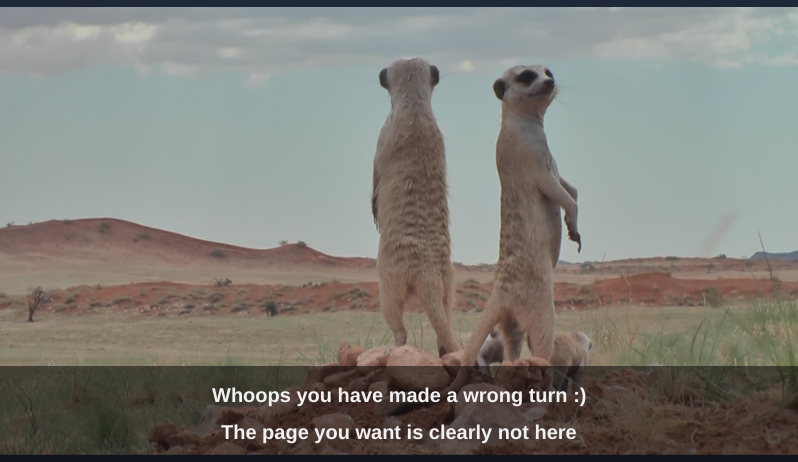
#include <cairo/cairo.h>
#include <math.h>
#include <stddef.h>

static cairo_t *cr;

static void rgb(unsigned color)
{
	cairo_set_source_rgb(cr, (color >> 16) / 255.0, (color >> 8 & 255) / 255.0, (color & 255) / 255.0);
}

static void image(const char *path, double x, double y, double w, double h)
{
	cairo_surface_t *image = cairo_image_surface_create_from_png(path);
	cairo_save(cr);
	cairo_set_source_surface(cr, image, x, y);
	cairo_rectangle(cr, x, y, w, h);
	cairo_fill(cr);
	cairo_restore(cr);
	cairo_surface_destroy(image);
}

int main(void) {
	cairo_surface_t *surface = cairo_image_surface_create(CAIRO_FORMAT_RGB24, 798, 462);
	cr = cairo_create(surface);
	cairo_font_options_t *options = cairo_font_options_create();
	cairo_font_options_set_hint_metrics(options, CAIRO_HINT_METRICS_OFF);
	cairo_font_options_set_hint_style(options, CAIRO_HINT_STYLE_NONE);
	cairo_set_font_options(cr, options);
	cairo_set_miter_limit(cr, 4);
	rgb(0x1f2836);
	cairo_paint(cr);
	image("img/1.png", 0, 7, 798, 448);
	cairo_set_source_rgba(cr, 0, 0, 0, 0.5);
	cairo_rectangle(cr, 0, 366, 798, 96);
	cairo_fill(cr);
	cairo_select_font_face(cr, "Liberation Sans", CAIRO_FONT_SLANT_NORMAL, CAIRO_FONT_WEIGHT_BOLD);
	cairo_set_font_size(cr, 20);
	rgb(0xf1f1f1);
	cairo_move_to(cr, 212, 402);
	cairo_show_text(cr, "Whoops you have made a wrong turn :)");
	cairo_move_to(cr, 221, 439);
	cairo_show_text(cr, "The page you want is clearly not here");
	cairo_surface_write_to_png(surface, "page.png");
	cairo_font_options_destroy(options);
	cairo_destroy(cr);
	cairo_surface_destroy(surface);
	return 0;
}
